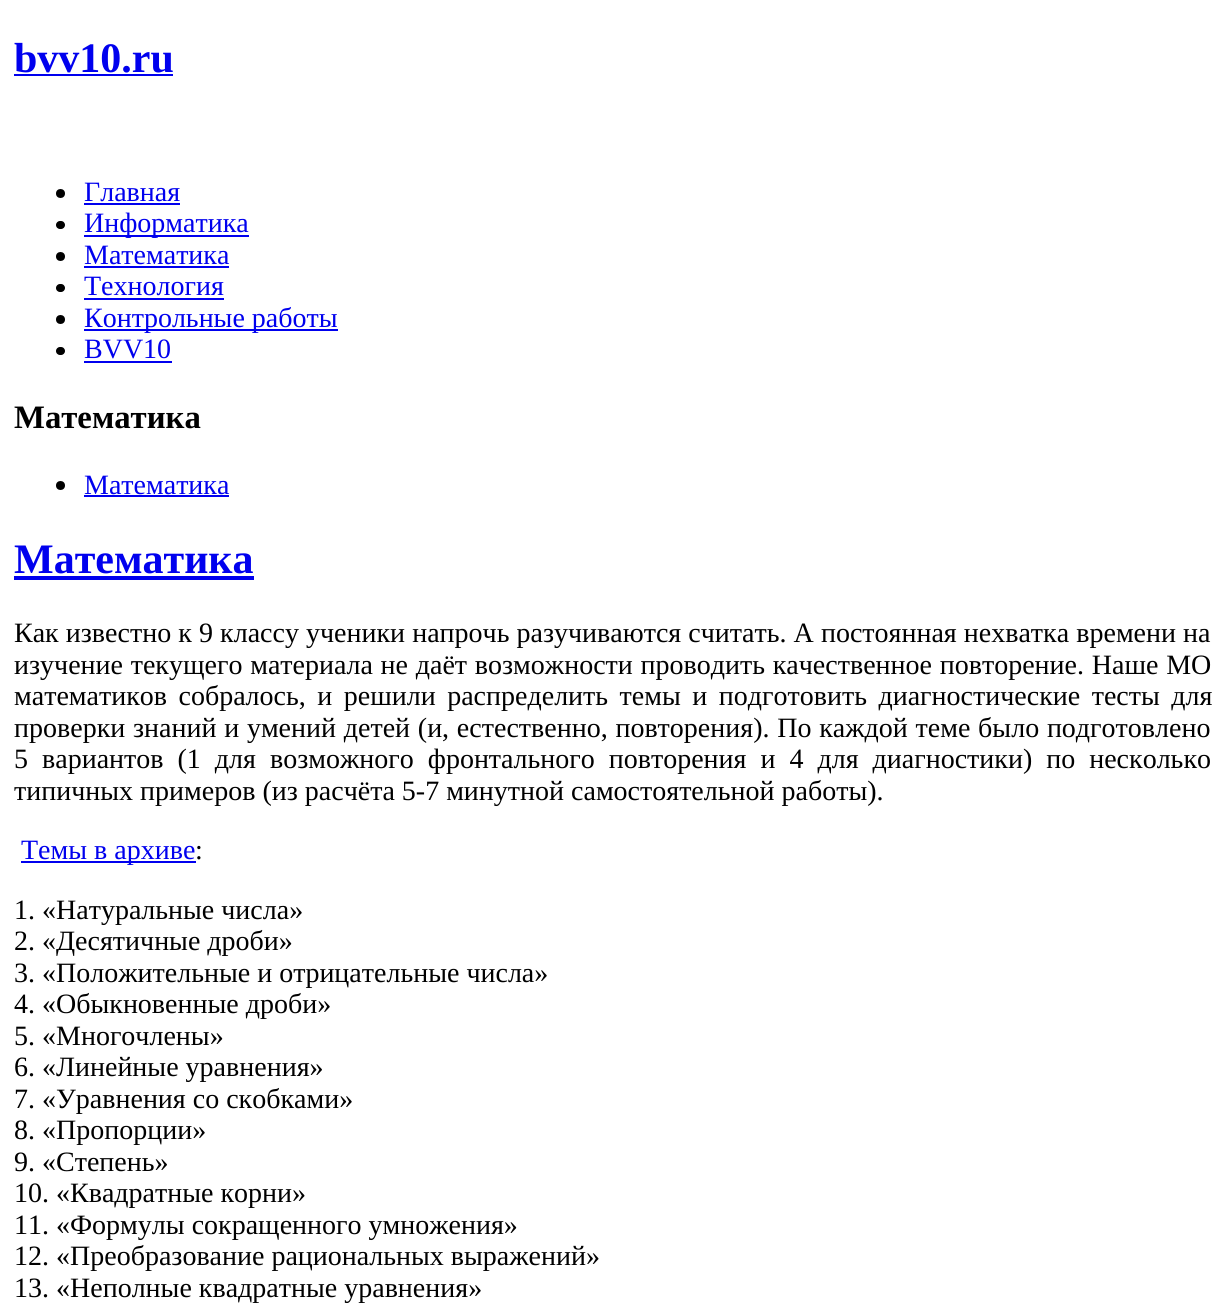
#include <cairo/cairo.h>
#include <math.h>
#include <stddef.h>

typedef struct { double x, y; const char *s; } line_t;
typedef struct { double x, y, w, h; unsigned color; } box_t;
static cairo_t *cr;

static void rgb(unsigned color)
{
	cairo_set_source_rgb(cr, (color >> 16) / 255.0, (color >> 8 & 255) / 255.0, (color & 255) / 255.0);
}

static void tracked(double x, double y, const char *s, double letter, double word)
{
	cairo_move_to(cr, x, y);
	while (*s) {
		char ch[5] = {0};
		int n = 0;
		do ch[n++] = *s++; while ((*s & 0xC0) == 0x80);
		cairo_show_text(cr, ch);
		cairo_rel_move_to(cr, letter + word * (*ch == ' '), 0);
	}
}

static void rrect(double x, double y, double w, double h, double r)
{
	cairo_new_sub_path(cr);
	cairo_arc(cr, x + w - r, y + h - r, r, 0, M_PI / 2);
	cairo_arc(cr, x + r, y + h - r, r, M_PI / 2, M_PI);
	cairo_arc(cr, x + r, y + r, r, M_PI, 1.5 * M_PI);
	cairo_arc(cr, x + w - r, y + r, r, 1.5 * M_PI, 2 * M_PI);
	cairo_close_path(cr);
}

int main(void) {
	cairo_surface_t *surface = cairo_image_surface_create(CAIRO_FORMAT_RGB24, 1225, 1316);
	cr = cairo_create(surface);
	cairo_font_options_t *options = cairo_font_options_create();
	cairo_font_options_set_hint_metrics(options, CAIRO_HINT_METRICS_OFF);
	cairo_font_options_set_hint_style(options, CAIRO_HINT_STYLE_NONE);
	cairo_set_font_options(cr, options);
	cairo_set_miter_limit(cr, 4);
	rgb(0xffffff);
	cairo_paint(cr);
	rgb(0x0000ee);
	cairo_rectangle(cr, 14, 74, 159, 2);
	cairo_fill(cr);
	rgb(0x000000);
	cairo_arc(cr, 60.5, 193.5, 4.5, 0, 2 * M_PI);
	cairo_fill(cr);
	rgb(0x0000ee);
	cairo_rectangle(cr, 84, 203, 96, 2);
	cairo_fill(cr);
	rgb(0x000000);
	rrect(56, 221, 9, 8, 4);
	cairo_fill(cr);
	rgb(0x0000ee);
	cairo_rectangle(cr, 84, 235, 165, 2);
	cairo_fill(cr);
	rgb(0x000000);
	cairo_arc(cr, 60.5, 256.5, 4.5, 0, 2 * M_PI);
	cairo_fill(cr);
	rgb(0x0000ee);
	cairo_rectangle(cr, 84, 266, 145, 2);
	cairo_fill(cr);
	rgb(0x000000);
	rrect(56, 284, 9, 8, 4);
	cairo_fill(cr);
	rgb(0x0000ee);
	cairo_rectangle(cr, 84, 298, 140, 2);
	cairo_fill(cr);
	rgb(0x000000);
	cairo_arc(cr, 60.5, 319.5, 4.5, 0, 2 * M_PI);
	cairo_fill(cr);
	rgb(0x0000ee);
	cairo_rectangle(cr, 84, 329, 254, 2);
	cairo_fill(cr);
	rgb(0x000000);
	rrect(56, 347, 9, 8, 4);
	cairo_fill(cr);
	rgb(0x0000ee);
	cairo_rectangle(cr, 84, 361, 88, 2);
	cairo_fill(cr);
	rgb(0x000000);
	cairo_arc(cr, 60.5, 485.5, 4.5, 0, 2 * M_PI);
	cairo_fill(cr);
	{
		static const box_t items[] = {
			{84, 495, 145, 2, 0x0000ee},
			{14, 576, 240, 4, 0x0000ee},
			{21, 861, 175, 2, 0x0000ee},
		};
		for (size_t i = 0; i < sizeof items / sizeof *items; i++) {
			rgb(items[i].color);
			cairo_rectangle(cr, items[i].x, items[i].y, items[i].w, items[i].h);
			cairo_fill(cr);
		}
	}
	cairo_select_font_face(cr, "Liberation Serif", CAIRO_FONT_SLANT_NORMAL, CAIRO_FONT_WEIGHT_BOLD);
	cairo_set_font_size(cr, 42);
	cairo_move_to(cr, 14, 72);
	cairo_show_text(cr, "bvv10.ru");
	cairo_select_font_face(cr, "Liberation Serif", CAIRO_FONT_SLANT_NORMAL, CAIRO_FONT_WEIGHT_NORMAL);
	cairo_set_font_size(cr, 28);
	{
		static const line_t items[] = {
			{84, 201, "Главная"},
			{84, 232, "Информатика"},
			{84, 264, "Математика"},
			{84, 295, "Технология"},
			{84, 327, "Контрольные работы"},
			{84, 358, "BVV10"},
		};
		for (size_t i = 0; i < sizeof items / sizeof *items; i++) {
			cairo_move_to(cr, items[i].x, items[i].y);
			cairo_show_text(cr, items[i].s);
		}
	}
	cairo_select_font_face(cr, "Liberation Serif", CAIRO_FONT_SLANT_NORMAL, CAIRO_FONT_WEIGHT_BOLD);
	cairo_set_font_size(cr, 32.75);
	rgb(0x000000);
	cairo_move_to(cr, 14, 428);
	cairo_show_text(cr, "Математика");
	cairo_select_font_face(cr, "Liberation Serif", CAIRO_FONT_SLANT_NORMAL, CAIRO_FONT_WEIGHT_NORMAL);
	cairo_set_font_size(cr, 28);
	rgb(0x0000ee);
	cairo_move_to(cr, 84, 494);
	cairo_show_text(cr, "Математика");
	cairo_select_font_face(cr, "Liberation Serif", CAIRO_FONT_SLANT_NORMAL, CAIRO_FONT_WEIGHT_BOLD);
	cairo_set_font_size(cr, 42);
	cairo_move_to(cr, 14, 573);
	cairo_show_text(cr, "Математика");
	cairo_select_font_face(cr, "Liberation Serif", CAIRO_FONT_SLANT_NORMAL, CAIRO_FONT_WEIGHT_NORMAL);
	cairo_set_font_size(cr, 28);
	rgb(0x000000);
	tracked(14, 642, "Как известно к 9 классу ученики напрочь разучиваются считать. А постоянная нехватка времени на", 0, 0.1);
	tracked(14, 674, "изучение текущего материала не даёт возможности проводить качественное повторение. Наше МО", 0, 0.75);
	tracked(14, 705, "математиков собралось, и решили распределить темы и подготовить диагностические тесты для", 0, 4.5);
	tracked(14, 737, "проверки знаний и умений детей (и, естественно, повторения). По каждой теме было подготовлено", 0, 0.75);
	tracked(14, 768, "5 вариантов (1 для возможного фронтального повторения и 4 для диагностики) по несколько", 0, 7);
	cairo_move_to(cr, 14, 800);
	cairo_show_text(cr, "типичных примеров (из расчёта 5-7 минутной самостоятельной работы).");
	rgb(0x0000ee);
	cairo_move_to(cr, 21, 859);
	cairo_show_text(cr, "Темы в архиве");
	rgb(0x000000);
	{
		static const line_t items[] = {
			{195, 859, ":"},
			{14, 919, "1. «Натуральные числа»"},
			{14, 950, "2. «Десятичные дроби»"},
			{14, 982, "3. «Положительные и отрицательные числа»"},
			{14, 1013, "4. «Обыкновенные дроби»"},
			{14, 1045, "5. «Многочлены»"},
			{14, 1076, "6. «Линейные уравнения»"},
			{14, 1108, "7. «Уравнения со скобками»"},
			{14, 1139, "8. «Пропорции»"},
			{14, 1171, "9. «Степень»"},
			{14, 1202, "10. «Квадратные корни»"},
			{14, 1234, "11. «Формулы сокращенного умножения»"},
			{14, 1265, "12. «Преобразование рациональных выражений»"},
			{14, 1297, "13. «Неполные квадратные уравнения»"},
		};
		for (size_t i = 0; i < sizeof items / sizeof *items; i++) {
			cairo_move_to(cr, items[i].x, items[i].y);
			cairo_show_text(cr, items[i].s);
		}
	}
	cairo_surface_write_to_png(surface, "page.png");
	cairo_font_options_destroy(options);
	cairo_destroy(cr);
	cairo_surface_destroy(surface);
	return 0;
}
